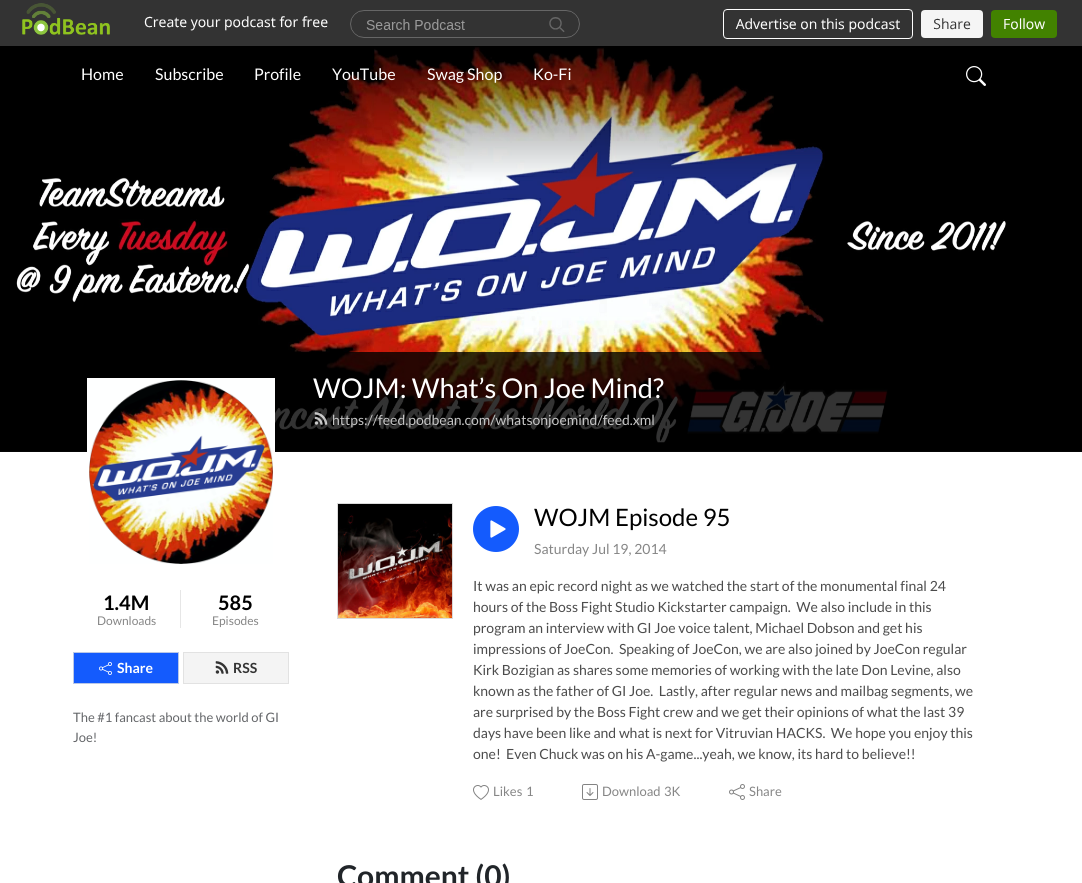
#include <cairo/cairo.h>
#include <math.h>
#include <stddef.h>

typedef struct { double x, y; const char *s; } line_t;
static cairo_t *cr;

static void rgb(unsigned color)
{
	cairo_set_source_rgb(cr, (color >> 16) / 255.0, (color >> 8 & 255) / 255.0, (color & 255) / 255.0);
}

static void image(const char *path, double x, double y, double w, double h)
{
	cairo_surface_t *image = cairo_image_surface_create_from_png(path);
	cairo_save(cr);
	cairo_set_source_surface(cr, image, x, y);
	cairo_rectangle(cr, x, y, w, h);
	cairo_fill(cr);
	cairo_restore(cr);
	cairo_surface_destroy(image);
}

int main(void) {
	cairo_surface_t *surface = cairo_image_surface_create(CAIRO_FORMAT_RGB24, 1082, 883);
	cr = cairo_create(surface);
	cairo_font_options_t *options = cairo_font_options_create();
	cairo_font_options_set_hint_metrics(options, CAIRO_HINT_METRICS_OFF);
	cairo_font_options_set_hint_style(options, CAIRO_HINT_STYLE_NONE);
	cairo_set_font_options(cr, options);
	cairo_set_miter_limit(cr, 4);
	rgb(0xffffff);
	cairo_paint(cr);
	rgb(0x333333);
	cairo_rectangle(cr, 0, 0, 1082, 46);
	cairo_fill(cr);
	image("img/1.png", 22, 3, 1035, 36);
	image("img/3.png", 0, 46, 1082, 406);
	image("img/2.png", 966, 66, 20, 20);
	cairo_set_source_rgba(cr, 0, 0, 0, 0.8);
	cairo_rectangle(cr, 0, 352, 1082, 100);
	cairo_fill(cr);
	image("img/4.png", 314, 412, 14, 13);
	cairo_rectangle(cr, 88, 379, 186, 186);
	rgb(0xffffff);
	cairo_stroke(cr);
	image("img/5.png", 89, 380, 184, 184);
	rgb(0xe6e6e6);
	cairo_rectangle(cr, 180, 590, 1, 38);
	cairo_fill(cr);
	rgb(0x145bfd);
	cairo_rectangle(cr, 73.5, 652.5, 105, 31);
	cairo_fill_preserve(cr);
	rgb(0xb9c7e7);
	cairo_set_line_width(cr, 1);
	cairo_stroke(cr);
	image("img/6.png", 99, 662, 13, 13);
	rgb(0xf4f4f4);
	cairo_rectangle(cr, 183.5, 652.5, 105, 31);
	cairo_fill_preserve(cr);
	rgb(0xe2e2e2);
	cairo_stroke(cr);
	image("img/7.png", 215, 661, 14, 13);
	cairo_rectangle(cr, 337.5, 503.5, 115, 115);
	rgb(0xdadada);
	cairo_stroke(cr);
	image("img/8.png", 338, 504, 114, 114);
	rgb(0x145bfd);
	cairo_arc(cr, 496, 529, 23, 0, 2 * M_PI);
	cairo_fill(cr);
	image("img/9.png", 490, 520, 16, 18);
	image("img/10.png", 473, 785, 16, 15);
	image("img/11.png", 582, 784, 16, 16);
	image("img/12.png", 729, 784, 16, 16);
	cairo_select_font_face(cr, "Lato", CAIRO_FONT_SLANT_NORMAL, CAIRO_FONT_WEIGHT_NORMAL);
	cairo_set_font_size(cr, 16);
	rgb(0xffffff);
	{
		static const line_t items[] = {
			{81, 80, "Home"},
			{155, 80, "Subscribe"},
			{254, 80, "Profile"},
			{332, 80, "YouTube"},
			{427, 80, "Swag Shop"},
			{533, 80, "Ko-Fi"},
		};
		for (size_t i = 0; i < sizeof items / sizeof *items; i++) {
			cairo_move_to(cr, items[i].x, items[i].y);
			cairo_show_text(cr, items[i].s);
		}
	}
	cairo_set_font_size(cr, 27.25);
	cairo_move_to(cr, 313, 398);
	cairo_show_text(cr, "WOJM: What’s On Joe Mind?");
	cairo_set_font_size(cr, 14);
	rgb(0xc5c5c5);
	cairo_move_to(cr, 332, 425);
	cairo_show_text(cr, "https://feed.podbean.com/whatsonjoemind/feed.xml");
	cairo_select_font_face(cr, "Lato", CAIRO_FONT_SLANT_NORMAL, CAIRO_FONT_WEIGHT_BOLD);
	cairo_set_font_size(cr, 20);
	rgb(0x000000);
	cairo_move_to(cr, 103, 610);
	cairo_show_text(cr, "1.4M");
	cairo_select_font_face(cr, "Lato", CAIRO_FONT_SLANT_NORMAL, CAIRO_FONT_WEIGHT_NORMAL);
	cairo_set_font_size(cr, 12);
	rgb(0x868686);
	cairo_move_to(cr, 97, 625);
	cairo_show_text(cr, "Downloads");
	cairo_select_font_face(cr, "Lato", CAIRO_FONT_SLANT_NORMAL, CAIRO_FONT_WEIGHT_BOLD);
	cairo_set_font_size(cr, 20);
	rgb(0x000000);
	cairo_move_to(cr, 218, 610);
	cairo_show_text(cr, "585");
	cairo_select_font_face(cr, "Lato", CAIRO_FONT_SLANT_NORMAL, CAIRO_FONT_WEIGHT_NORMAL);
	cairo_set_font_size(cr, 12);
	rgb(0x868686);
	cairo_move_to(cr, 212, 625);
	cairo_show_text(cr, "Episodes");
	cairo_select_font_face(cr, "Lato", CAIRO_FONT_SLANT_NORMAL, CAIRO_FONT_WEIGHT_BOLD);
	cairo_set_font_size(cr, 14);
	rgb(0xffffff);
	cairo_move_to(cr, 117, 673);
	cairo_show_text(cr, "Share");
	rgb(0x333333);
	cairo_move_to(cr, 233, 673);
	cairo_show_text(cr, "RSS");
	cairo_select_font_face(cr, "Lato", CAIRO_FONT_SLANT_NORMAL, CAIRO_FONT_WEIGHT_NORMAL);
	cairo_set_font_size(cr, 13);
	rgb(0x646669);
	cairo_move_to(cr, 73, 722);
	cairo_show_text(cr, "The #1 fancast about the world of GI");
	cairo_move_to(cr, 73, 742);
	cairo_show_text(cr, "Joe!");
	cairo_set_font_size(cr, 24);
	rgb(0x000000);
	cairo_move_to(cr, 534, 526);
	cairo_show_text(cr, "WOJM Episode 95");
	cairo_set_font_size(cr, 14);
	rgb(0x868686);
	cairo_move_to(cr, 534, 554);
	cairo_show_text(cr, "Saturday Jul 19, 2014");
	rgb(0x4c4c4c);
	{
		static const line_t items[] = {
			{473, 591, "It was an epic record night as we watched the start of the monumental final 24"},
			{473, 612, "hours of the Boss Fight Studio Kickstarter campaign.  We also include in this"},
			{473, 633, "program an interview with GI Joe voice talent, Michael Dobson and get his"},
			{473, 654, "impressions of JoeCon.  Speaking of JoeCon, we are also joined by JoeCon regular"},
			{473, 675, "Kirk Bozigian as shares some memories of working with the late Don Levine, also"},
			{473, 696, "known as the father of GI Joe.  Lastly, after regular news and mailbag segments, we"},
			{473, 717, "are surprised by the Boss Fight crew and we get their opinions of what the last 39"},
			{473, 738, "days have been like and what is next for Vitruvian HACKS.  We hope you enjoy this"},
			{473, 759, "one!  Even Chuck was on his A-game...yeah, we know, its hard to believe!!"},
		};
		for (size_t i = 0; i < sizeof items / sizeof *items; i++) {
			cairo_move_to(cr, items[i].x, items[i].y);
			cairo_show_text(cr, items[i].s);
		}
	}
	cairo_set_font_size(cr, 13);
	rgb(0x868686);
	{
		static const line_t items[] = {
			{493, 796, "Likes"},
			{526, 796, "1"},
			{602, 796, "Download"},
			{664, 796, "3K"},
			{749, 796, "Share"},
		};
		for (size_t i = 0; i < sizeof items / sizeof *items; i++) {
			cairo_move_to(cr, items[i].x, items[i].y);
			cairo_show_text(cr, items[i].s);
		}
	}
	cairo_select_font_face(cr, "Lato", CAIRO_FONT_SLANT_NORMAL, CAIRO_FONT_WEIGHT_BOLD);
	cairo_set_font_size(cr, 30);
	rgb(0x212529);
	cairo_move_to(cr, 337, 887);
	cairo_show_text(cr, "Comment (0)");
	cairo_surface_write_to_png(surface, "page.png");
	cairo_font_options_destroy(options);
	cairo_destroy(cr);
	cairo_surface_destroy(surface);
	return 0;
}
